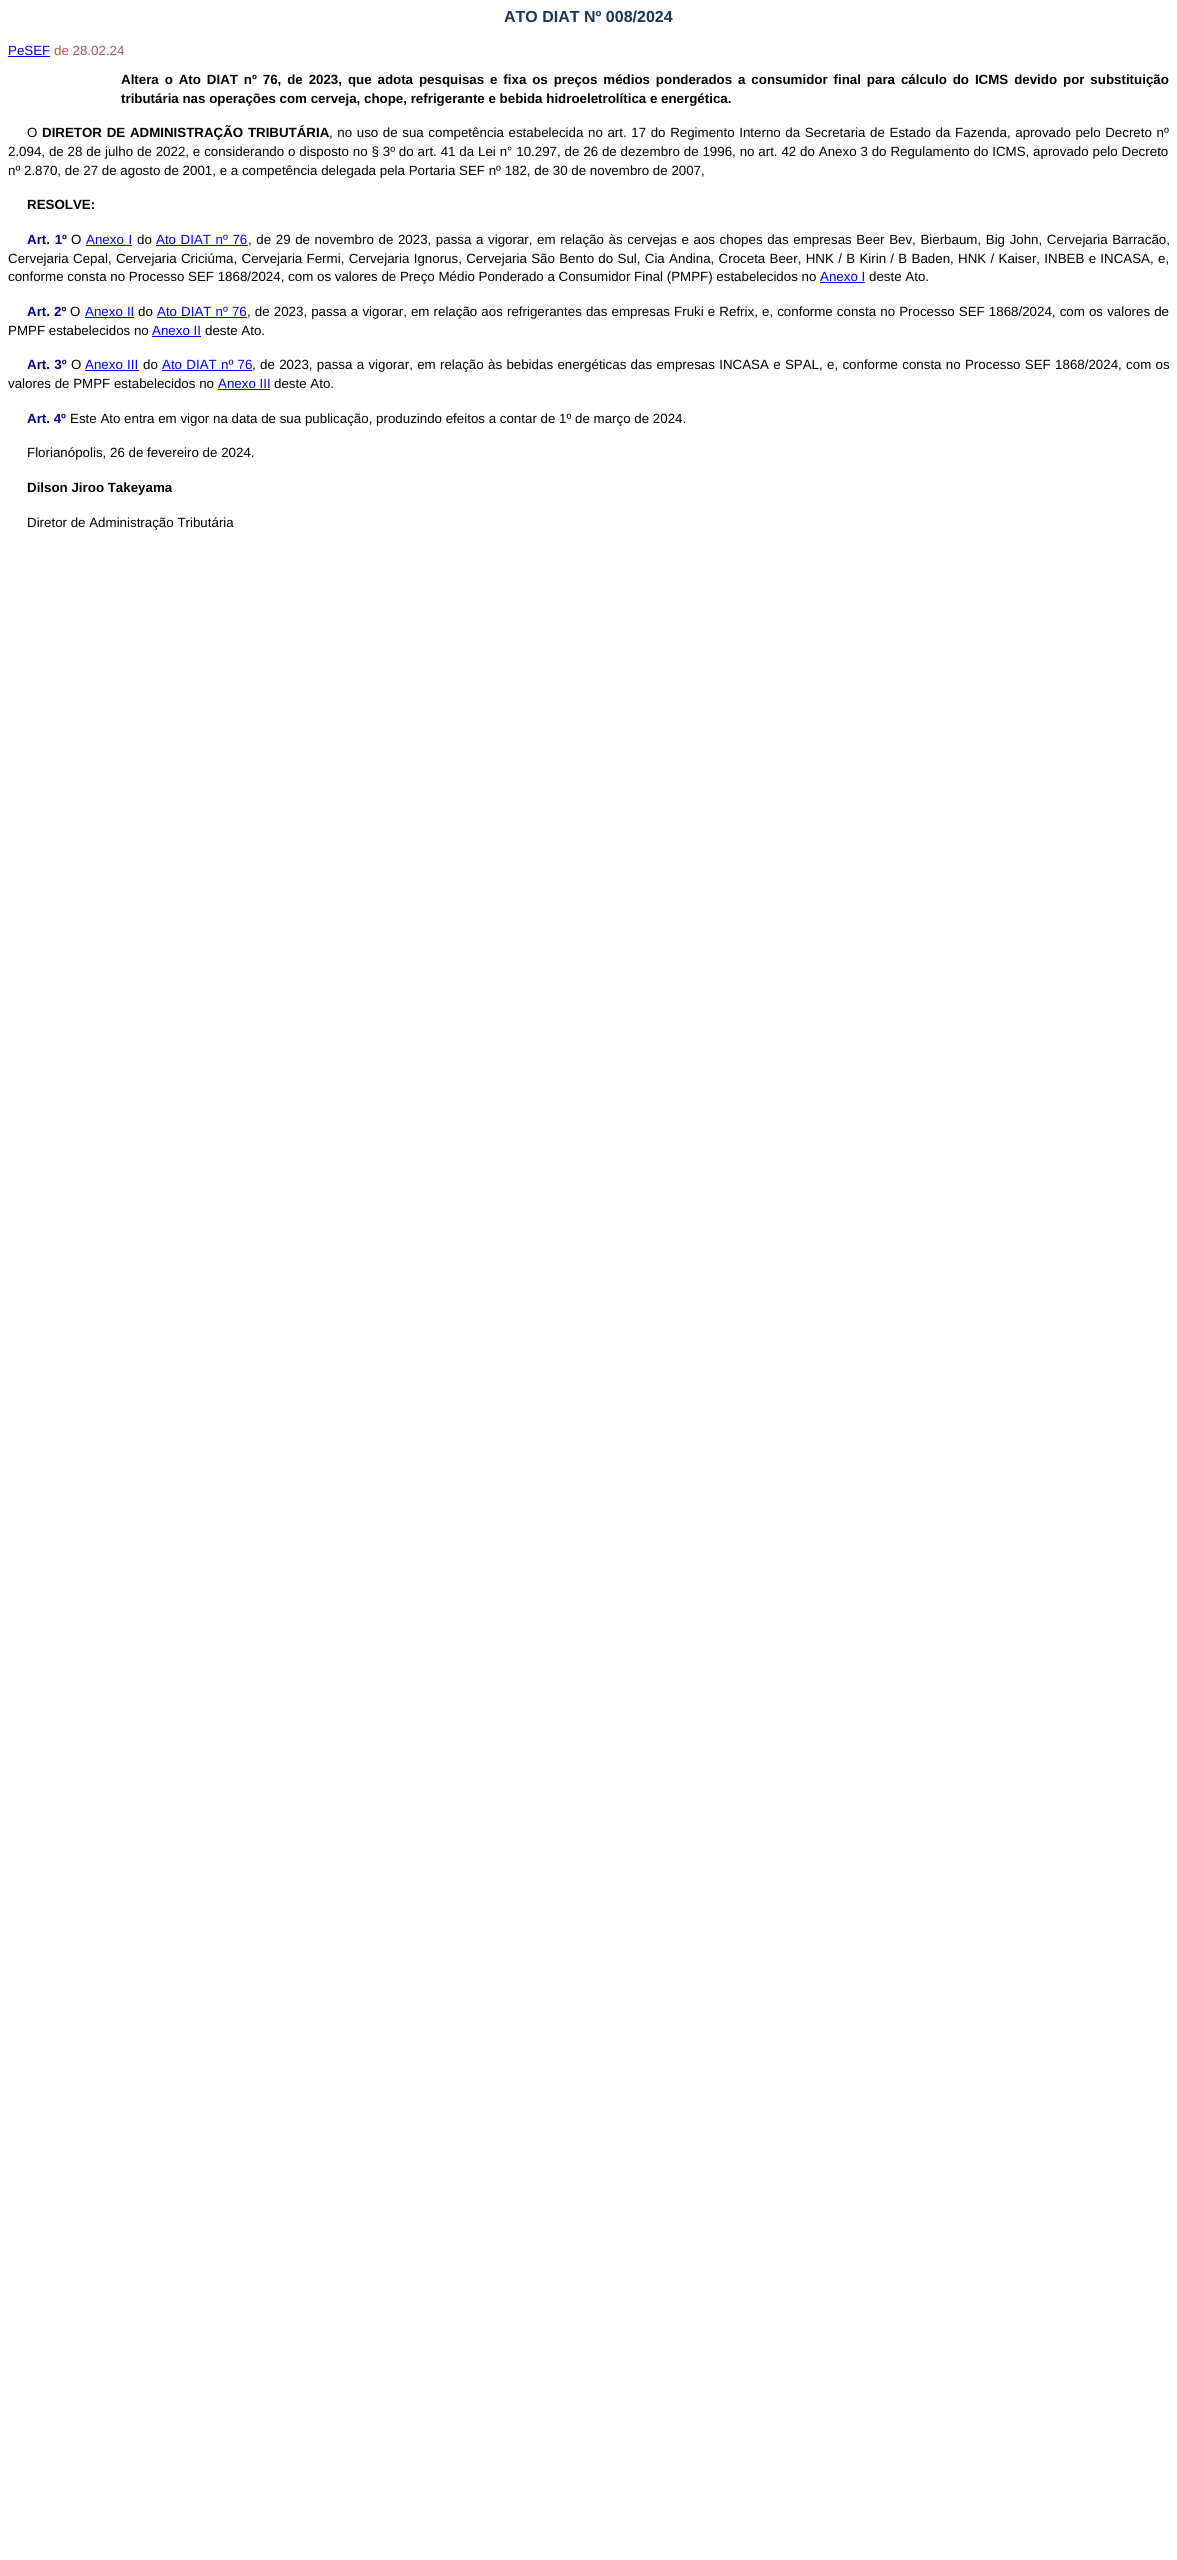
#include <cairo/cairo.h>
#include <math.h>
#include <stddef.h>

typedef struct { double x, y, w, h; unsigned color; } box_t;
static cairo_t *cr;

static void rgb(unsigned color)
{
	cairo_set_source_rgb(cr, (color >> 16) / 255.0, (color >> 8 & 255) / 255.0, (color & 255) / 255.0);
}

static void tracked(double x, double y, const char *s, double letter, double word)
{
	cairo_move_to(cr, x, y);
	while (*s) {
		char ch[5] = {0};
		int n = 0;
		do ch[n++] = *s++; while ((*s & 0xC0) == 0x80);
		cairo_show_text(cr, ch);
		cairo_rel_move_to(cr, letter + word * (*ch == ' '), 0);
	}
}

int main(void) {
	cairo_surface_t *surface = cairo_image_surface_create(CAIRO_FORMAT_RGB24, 1177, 2560);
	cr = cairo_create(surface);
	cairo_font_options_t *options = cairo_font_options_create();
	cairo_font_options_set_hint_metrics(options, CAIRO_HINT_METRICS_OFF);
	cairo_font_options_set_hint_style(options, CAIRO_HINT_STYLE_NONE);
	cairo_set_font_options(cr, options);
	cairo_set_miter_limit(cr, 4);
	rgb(0xffffff);
	cairo_paint(cr);
	{
		static const box_t items[] = {
			{8, 56, 42, 1, 0x0000ff},
			{86, 245, 46, 1, 0x0000ff},
			{156, 245, 92, 1, 0x0000ff},
			{820, 282, 45, 1, 0x0000ff},
			{85, 317, 49, 1, 0x0000ff},
			{157, 317, 90, 1, 0x0000ff},
			{152, 336, 49, 1, 0x0000ff},
			{85, 370, 54, 1, 0x0000ff},
			{162, 370, 90, 1, 0x0000ff},
			{218, 389, 52, 1, 0x0000ff},
		};
		for (size_t i = 0; i < sizeof items / sizeof *items; i++) {
			rgb(items[i].color);
			cairo_rectangle(cr, items[i].x, items[i].y, items[i].w, items[i].h);
			cairo_fill(cr);
		}
	}
	cairo_select_font_face(cr, "Liberation Sans", CAIRO_FONT_SLANT_NORMAL, CAIRO_FONT_WEIGHT_BOLD);
	cairo_set_font_size(cr, 16);
	rgb(0x17365d);
	cairo_move_to(cr, 504, 22);
	cairo_show_text(cr, "ATO DIAT Nº 008/2024");
	cairo_select_font_face(cr, "Liberation Sans", CAIRO_FONT_SLANT_NORMAL, CAIRO_FONT_WEIGHT_NORMAL);
	cairo_set_font_size(cr, 13.33);
	rgb(0x0000ff);
	cairo_move_to(cr, 8, 55);
	cairo_show_text(cr, "PeSEF");
	rgb(0xc0504d);
	cairo_move_to(cr, 54, 55);
	cairo_show_text(cr, "de 28.02.24");
	cairo_select_font_face(cr, "Liberation Sans", CAIRO_FONT_SLANT_NORMAL, CAIRO_FONT_WEIGHT_BOLD);
	rgb(0x000000);
	tracked(121, 84, "Altera o Ato DIAT nº 76, de 2023, que adota pesquisas e fixa os preços médios ponderados a consumidor final para cálculo do ICMS devido por substituição", 0, 2.2);
	cairo_move_to(cr, 121, 103);
	cairo_show_text(cr, "tributária nas operações com cerveja, chope, refrigerante e bebida hidroeletrolítica e energética.");
	cairo_select_font_face(cr, "Liberation Sans", CAIRO_FONT_SLANT_NORMAL, CAIRO_FONT_WEIGHT_NORMAL);
	cairo_move_to(cr, 27, 137);
	cairo_show_text(cr, "O");
	cairo_select_font_face(cr, "Liberation Sans", CAIRO_FONT_SLANT_NORMAL, CAIRO_FONT_WEIGHT_BOLD);
	tracked(42, 137, "DIRETOR DE ADMINISTRAÇÃO TRIBUTÁRIA", 0, 1);
	cairo_select_font_face(cr, "Liberation Sans", CAIRO_FONT_SLANT_NORMAL, CAIRO_FONT_WEIGHT_NORMAL);
	tracked(329, 137, ", no uso de sua competência estabelecida no art. 17 do Regimento Interno da Secretaria de Estado da Fazenda, aprovado pelo Decreto nº", 0, 0.9);
	tracked(8, 156, "2.094, de 28 de julho de 2022, e considerando o disposto no § 3º do art. 41 da Lei n° 10.297, de 26 de dezembro de 1996, no art. 42 do Anexo 3 do Regulamento do ICMS, aprovado pelo Decreto", 0, 0.15);
	cairo_move_to(cr, 8, 175);
	cairo_show_text(cr, "nº 2.870, de 27 de agosto de 2001, e a competência delegada pela Portaria SEF nº 182, de 30 de novembro de 2007,");
	cairo_select_font_face(cr, "Liberation Sans", CAIRO_FONT_SLANT_NORMAL, CAIRO_FONT_WEIGHT_BOLD);
	cairo_move_to(cr, 27, 209);
	cairo_show_text(cr, "RESOLVE:");
	rgb(0x000099);
	tracked(27, 244, "Art. 1º", 0, 1);
	cairo_select_font_face(cr, "Liberation Sans", CAIRO_FONT_SLANT_NORMAL, CAIRO_FONT_WEIGHT_NORMAL);
	rgb(0x000000);
	cairo_move_to(cr, 71, 244);
	cairo_show_text(cr, "O");
	rgb(0x0000ff);
	tracked(86, 244, "Anexo I", 0, 1);
	rgb(0x000000);
	cairo_move_to(cr, 137, 244);
	cairo_show_text(cr, "do");
	rgb(0x0000ff);
	tracked(156, 244, "Ato DIAT nº 76", 0, 0.9);
	rgb(0x000000);
	tracked(248, 244, ", de 29 de novembro de 2023, passa a vigorar, em relação às cervejas e aos chopes das empresas Beer Bev, Bierbaum, Big John, Cervejaria Barracão,", 0, 0.9);
	tracked(8, 263, "Cervejaria Cepal, Cervejaria Criciúma, Cervejaria Fermi, Cervejaria Ignorus, Cervejaria São Bento do Sul, Cia Andina, Croceta Beer, HNK / B Kirin / B Baden, HNK / Kaiser, INBEB e INCASA, e,", 0, 0.6);
	cairo_move_to(cr, 8, 281);
	cairo_show_text(cr, "conforme consta no Processo SEF 1868/2024, com os valores de Preço Médio Ponderado a Consumidor Final (PMPF) estabelecidos no");
	rgb(0x0000ff);
	cairo_move_to(cr, 820, 281);
	cairo_show_text(cr, "Anexo I");
	rgb(0x000000);
	cairo_move_to(cr, 869, 281);
	cairo_show_text(cr, "deste Ato.");
	cairo_select_font_face(cr, "Liberation Sans", CAIRO_FONT_SLANT_NORMAL, CAIRO_FONT_WEIGHT_BOLD);
	rgb(0x000099);
	tracked(27, 316, "Art. 2º", 0, 0.4);
	cairo_select_font_face(cr, "Liberation Sans", CAIRO_FONT_SLANT_NORMAL, CAIRO_FONT_WEIGHT_NORMAL);
	rgb(0x000000);
	cairo_move_to(cr, 70, 316);
	cairo_show_text(cr, "O");
	rgb(0x0000ff);
	tracked(85, 316, "Anexo II", 0, 0.4);
	rgb(0x000000);
	cairo_move_to(cr, 138, 316);
	cairo_show_text(cr, "do");
	rgb(0x0000ff);
	tracked(157, 316, "Ato DIAT nº 76", 0, 0.4);
	rgb(0x000000);
	tracked(247, 316, ", de 2023, passa a vigorar, em relação aos refrigerantes das empresas Fruki e Refrix, e, conforme consta no Processo SEF 1868/2024, com os valores de", 0, 0.4);
	cairo_move_to(cr, 8, 335);
	cairo_show_text(cr, "PMPF estabelecidos no");
	rgb(0x0000ff);
	cairo_move_to(cr, 152, 335);
	cairo_show_text(cr, "Anexo II");
	rgb(0x000000);
	cairo_move_to(cr, 205, 335);
	cairo_show_text(cr, "deste Ato.");
	cairo_select_font_face(cr, "Liberation Sans", CAIRO_FONT_SLANT_NORMAL, CAIRO_FONT_WEIGHT_BOLD);
	rgb(0x000099);
	tracked(27, 369, "Art. 3º", 0, 0.6);
	cairo_select_font_face(cr, "Liberation Sans", CAIRO_FONT_SLANT_NORMAL, CAIRO_FONT_WEIGHT_NORMAL);
	rgb(0x000000);
	cairo_move_to(cr, 71, 369);
	cairo_show_text(cr, "O");
	rgb(0x0000ff);
	tracked(85, 369, "Anexo III", 0, 0.6);
	rgb(0x000000);
	cairo_move_to(cr, 143, 369);
	cairo_show_text(cr, "do");
	rgb(0x0000ff);
	tracked(162, 369, "Ato DIAT nº 76", 0, 0.6);
	rgb(0x000000);
	tracked(252, 369, ", de 2023, passa a vigorar, em relação às bebidas energéticas das empresas INCASA e SPAL, e, conforme consta no Processo SEF 1868/2024, com os", 0, 0.6);
	cairo_move_to(cr, 8, 388);
	cairo_show_text(cr, "valores de PMPF estabelecidos no");
	rgb(0x0000ff);
	cairo_move_to(cr, 218, 388);
	cairo_show_text(cr, "Anexo III");
	rgb(0x000000);
	cairo_move_to(cr, 274, 388);
	cairo_show_text(cr, "deste Ato.");
	cairo_select_font_face(cr, "Liberation Sans", CAIRO_FONT_SLANT_NORMAL, CAIRO_FONT_WEIGHT_BOLD);
	rgb(0x000099);
	cairo_move_to(cr, 27, 423);
	cairo_show_text(cr, "Art. 4º");
	cairo_select_font_face(cr, "Liberation Sans", CAIRO_FONT_SLANT_NORMAL, CAIRO_FONT_WEIGHT_NORMAL);
	rgb(0x000000);
	cairo_move_to(cr, 70, 423);
	cairo_show_text(cr, "Este Ato entra em vigor na data de sua publicação, produzindo efeitos a contar de 1º de março de 2024.");
	cairo_move_to(cr, 27, 457);
	cairo_show_text(cr, "Florianópolis, 26 de fevereiro de 2024.");
	cairo_select_font_face(cr, "Liberation Sans", CAIRO_FONT_SLANT_NORMAL, CAIRO_FONT_WEIGHT_BOLD);
	cairo_move_to(cr, 27, 492);
	cairo_show_text(cr, "Dilson Jiroo Takeyama");
	cairo_select_font_face(cr, "Liberation Sans", CAIRO_FONT_SLANT_NORMAL, CAIRO_FONT_WEIGHT_NORMAL);
	cairo_move_to(cr, 27, 527);
	cairo_show_text(cr, "Diretor de Administração Tributária");
	cairo_surface_write_to_png(surface, "page.png");
	cairo_font_options_destroy(options);
	cairo_destroy(cr);
	cairo_surface_destroy(surface);
	return 0;
}
